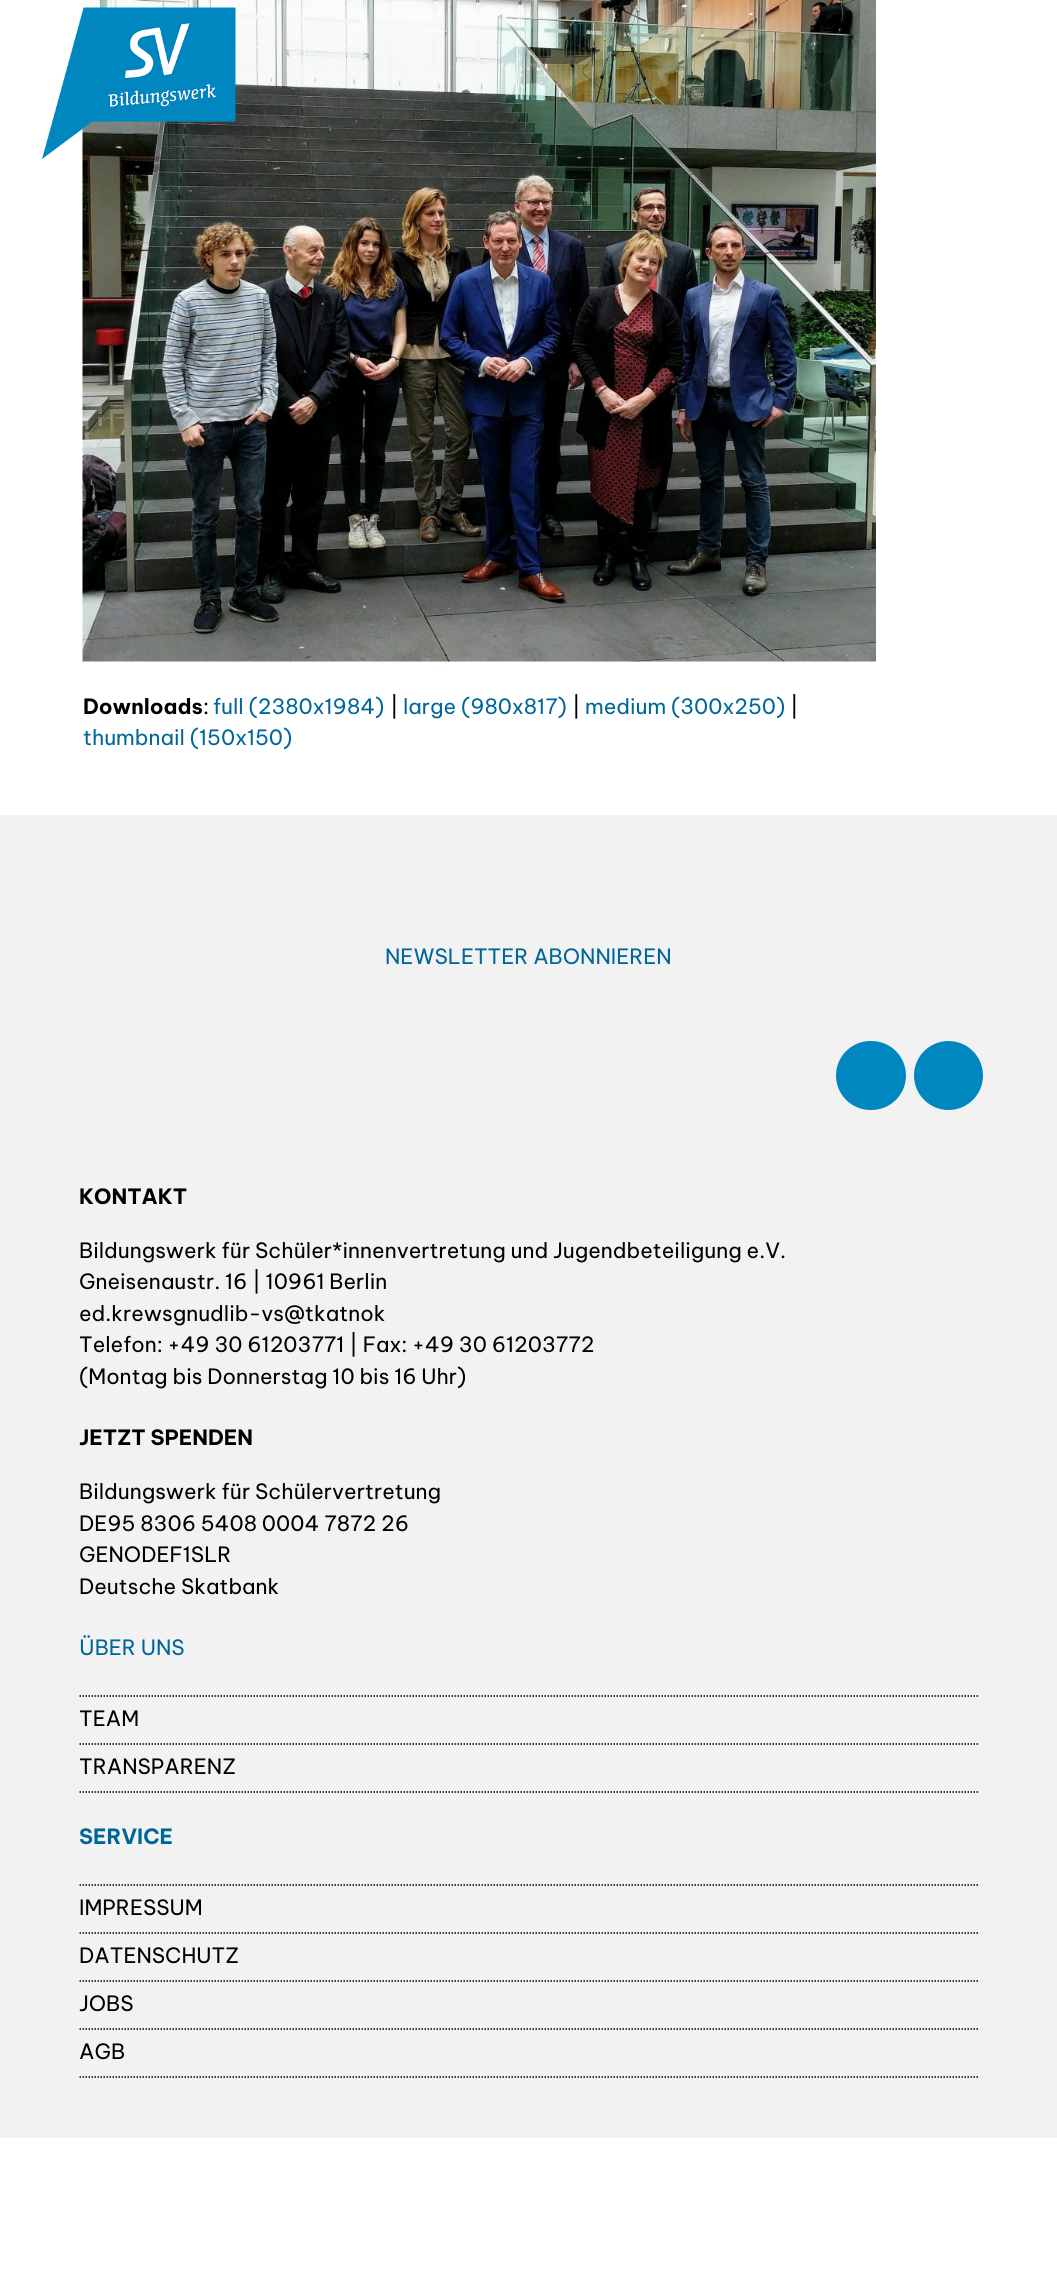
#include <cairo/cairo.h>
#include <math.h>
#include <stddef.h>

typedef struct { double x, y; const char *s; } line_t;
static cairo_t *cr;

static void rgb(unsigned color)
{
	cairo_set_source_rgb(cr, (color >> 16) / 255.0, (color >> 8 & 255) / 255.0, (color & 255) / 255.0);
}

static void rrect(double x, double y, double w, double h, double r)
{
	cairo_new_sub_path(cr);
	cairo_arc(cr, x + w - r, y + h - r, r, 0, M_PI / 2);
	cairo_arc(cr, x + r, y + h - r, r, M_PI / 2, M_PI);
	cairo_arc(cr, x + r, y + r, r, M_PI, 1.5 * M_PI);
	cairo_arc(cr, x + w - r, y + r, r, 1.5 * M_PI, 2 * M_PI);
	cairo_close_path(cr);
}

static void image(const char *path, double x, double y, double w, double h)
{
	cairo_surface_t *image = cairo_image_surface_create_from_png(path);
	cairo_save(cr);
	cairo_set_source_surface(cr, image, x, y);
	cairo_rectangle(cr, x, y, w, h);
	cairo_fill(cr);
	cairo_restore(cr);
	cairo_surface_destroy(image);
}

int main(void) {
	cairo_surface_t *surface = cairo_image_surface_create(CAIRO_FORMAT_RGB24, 1057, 2274);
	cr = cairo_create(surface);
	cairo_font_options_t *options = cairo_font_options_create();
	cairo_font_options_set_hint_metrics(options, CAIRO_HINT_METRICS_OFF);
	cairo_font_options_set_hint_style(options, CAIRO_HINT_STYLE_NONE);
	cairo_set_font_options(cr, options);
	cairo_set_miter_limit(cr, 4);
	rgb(0xffffff);
	cairo_paint(cr);
	image("img/2.png", 82, 0, 794, 662);
	image("img/1.png", 42, 7, 194, 152);
	rgb(0xf2f2f2);
	cairo_rectangle(cr, 0, 815, 1057, 1323);
	cairo_fill(cr);
	rgb(0x0087c0);
	rrect(836, 1041, 70, 69, 34.5);
	cairo_fill(cr);
	cairo_arc(cr, 948.5, 1075.5, 34.5, 0, 2 * M_PI);
	cairo_fill(cr);
	cairo_new_path(cr);
	cairo_move_to(cr, 79.5, 1696);
	cairo_line_to(cr, 978, 1696);
	rgb(0x000000);
	cairo_set_line_width(cr, 1.5);
	cairo_set_dash(cr, (double[]){1.5, 1.5}, 2, 0);
	cairo_stroke(cr);
	cairo_new_path(cr);
	cairo_move_to(cr, 79.5, 1744);
	cairo_line_to(cr, 978, 1744);
	cairo_stroke(cr);
	cairo_new_path(cr);
	cairo_move_to(cr, 79.5, 1792);
	cairo_line_to(cr, 978, 1792);
	cairo_stroke(cr);
	cairo_new_path(cr);
	cairo_move_to(cr, 79.5, 1885);
	cairo_line_to(cr, 978, 1885);
	cairo_stroke(cr);
	cairo_new_path(cr);
	cairo_move_to(cr, 79.5, 1933);
	cairo_line_to(cr, 978, 1933);
	cairo_stroke(cr);
	cairo_new_path(cr);
	cairo_move_to(cr, 79.5, 1981);
	cairo_line_to(cr, 978, 1981);
	cairo_stroke(cr);
	cairo_new_path(cr);
	cairo_move_to(cr, 79.5, 2029);
	cairo_line_to(cr, 978, 2029);
	cairo_stroke(cr);
	cairo_new_path(cr);
	cairo_move_to(cr, 79.5, 2077);
	cairo_line_to(cr, 978, 2077);
	cairo_stroke(cr);
	cairo_select_font_face(cr, "Be Vietnam Pro", CAIRO_FONT_SLANT_NORMAL, CAIRO_FONT_WEIGHT_BOLD);
	cairo_set_font_size(cr, 21);
	cairo_move_to(cr, 83, 714);
	cairo_show_text(cr, "Downloads");
	cairo_select_font_face(cr, "Be Vietnam Pro", CAIRO_FONT_SLANT_NORMAL, CAIRO_FONT_WEIGHT_NORMAL);
	cairo_move_to(cr, 203, 714);
	cairo_show_text(cr, ":");
	rgb(0x006699);
	cairo_move_to(cr, 213, 714);
	cairo_show_text(cr, "full (2380x1984)");
	rgb(0x000000);
	cairo_move_to(cr, 390, 714);
	cairo_show_text(cr, "|");
	rgb(0x006699);
	cairo_move_to(cr, 403, 714);
	cairo_show_text(cr, "large (980x817)");
	rgb(0x000000);
	cairo_move_to(cr, 572, 714);
	cairo_show_text(cr, "|");
	rgb(0x006699);
	cairo_move_to(cr, 585, 714);
	cairo_show_text(cr, "medium (300x250)");
	rgb(0x000000);
	cairo_move_to(cr, 790, 714);
	cairo_show_text(cr, "|");
	rgb(0x006699);
	cairo_move_to(cr, 83, 745);
	cairo_show_text(cr, "thumbnail (150x150)");
	cairo_move_to(cr, 385, 964);
	cairo_show_text(cr, "NEWSLETTER ABONNIEREN");
	cairo_select_font_face(cr, "Be Vietnam Pro", CAIRO_FONT_SLANT_NORMAL, CAIRO_FONT_WEIGHT_BOLD);
	rgb(0x000000);
	cairo_move_to(cr, 79, 1204);
	cairo_show_text(cr, "KONTAKT");
	cairo_select_font_face(cr, "Be Vietnam Pro", CAIRO_FONT_SLANT_NORMAL, CAIRO_FONT_WEIGHT_NORMAL);
	{
		static const line_t items[] = {
			{79, 1258, "Bildungswerk für Schüler*innenvertretung und Jugendbeteiligung e.V."},
			{79, 1289, "Gneisenaustr. 16 | 10961 Berlin"},
			{79, 1321, "ed.krewsgnudlib-vs@tkatnok"},
			{79, 1352, "Telefon: +49 30 61203771 | Fax: +49 30 61203772"},
			{79, 1384, "(Montag bis Donnerstag 10 bis 16 Uhr)"},
		};
		for (size_t i = 0; i < sizeof items / sizeof *items; i++) {
			cairo_move_to(cr, items[i].x, items[i].y);
			cairo_show_text(cr, items[i].s);
		}
	}
	cairo_select_font_face(cr, "Be Vietnam Pro", CAIRO_FONT_SLANT_NORMAL, CAIRO_FONT_WEIGHT_BOLD);
	cairo_move_to(cr, 79, 1445);
	cairo_show_text(cr, "JETZT SPENDEN");
	cairo_select_font_face(cr, "Be Vietnam Pro", CAIRO_FONT_SLANT_NORMAL, CAIRO_FONT_WEIGHT_NORMAL);
	{
		static const line_t items[] = {
			{79, 1499, "Bildungswerk für Schülervertretung"},
			{79, 1531, "DE95 8306 5408 0004 7872 26"},
			{79, 1562, "GENODEF1SLR"},
			{79, 1594, "Deutsche Skatbank"},
		};
		for (size_t i = 0; i < sizeof items / sizeof *items; i++) {
			cairo_move_to(cr, items[i].x, items[i].y);
			cairo_show_text(cr, items[i].s);
		}
	}
	rgb(0x006699);
	cairo_move_to(cr, 79, 1655);
	cairo_show_text(cr, "ÜBER UNS");
	rgb(0x000000);
	cairo_move_to(cr, 79, 1726);
	cairo_show_text(cr, "TEAM");
	cairo_move_to(cr, 79, 1774);
	cairo_show_text(cr, "TRANSPARENZ");
	cairo_select_font_face(cr, "Be Vietnam Pro", CAIRO_FONT_SLANT_NORMAL, CAIRO_FONT_WEIGHT_BOLD);
	rgb(0x006699);
	cairo_move_to(cr, 79, 1844);
	cairo_show_text(cr, "SERVICE");
	cairo_select_font_face(cr, "Be Vietnam Pro", CAIRO_FONT_SLANT_NORMAL, CAIRO_FONT_WEIGHT_NORMAL);
	rgb(0x000000);
	{
		static const line_t items[] = {
			{79, 1915, "IMPRESSUM"},
			{79, 1963, "DATENSCHUTZ"},
			{79, 2011, "JOBS"},
			{79, 2059, "AGB"},
		};
		for (size_t i = 0; i < sizeof items / sizeof *items; i++) {
			cairo_move_to(cr, items[i].x, items[i].y);
			cairo_show_text(cr, items[i].s);
		}
	}
	cairo_surface_write_to_png(surface, "page.png");
	cairo_font_options_destroy(options);
	cairo_destroy(cr);
	cairo_surface_destroy(surface);
	return 0;
}
